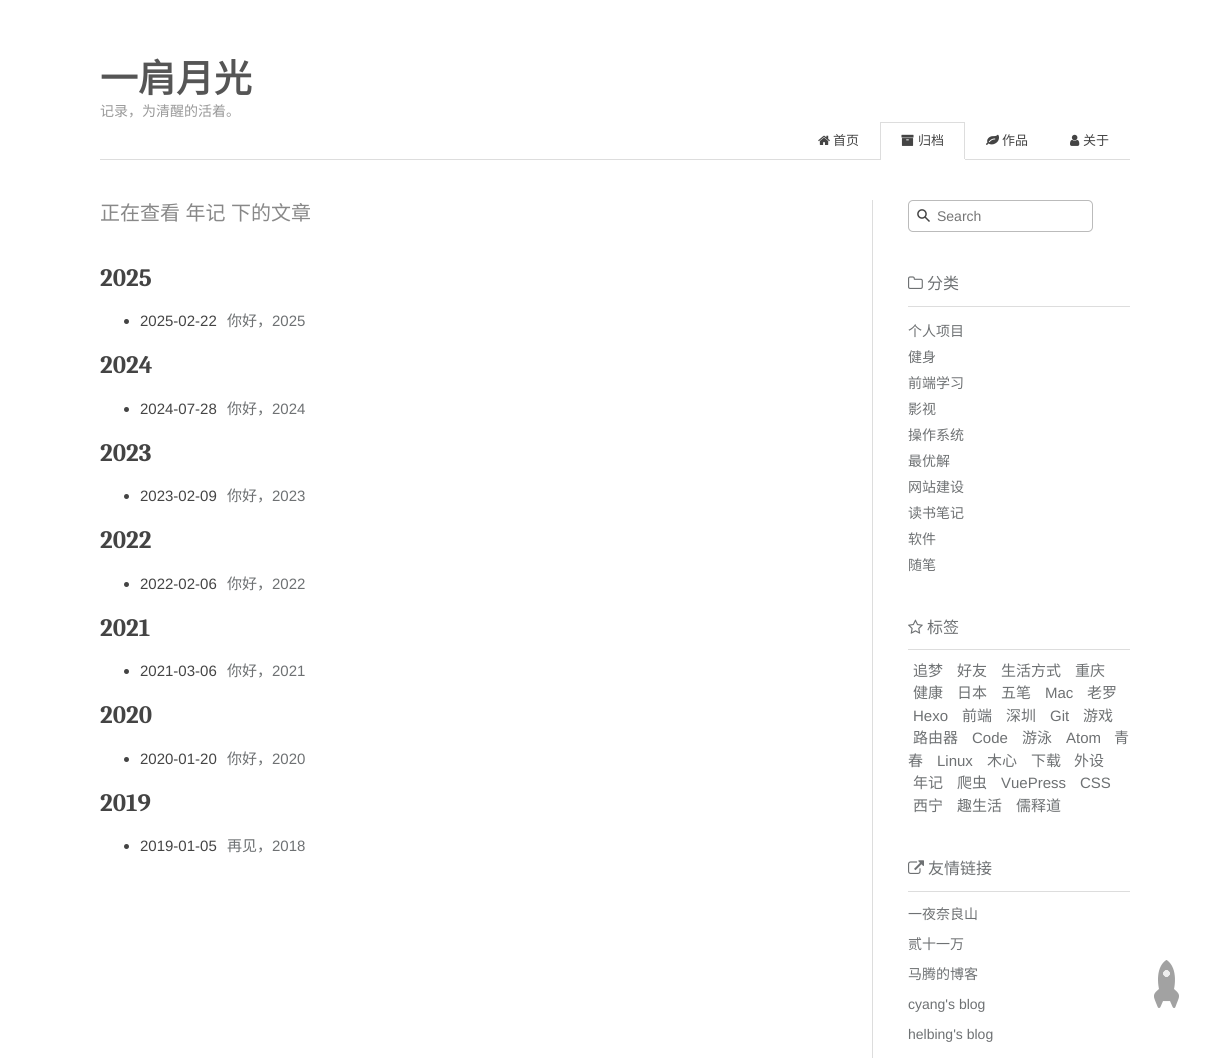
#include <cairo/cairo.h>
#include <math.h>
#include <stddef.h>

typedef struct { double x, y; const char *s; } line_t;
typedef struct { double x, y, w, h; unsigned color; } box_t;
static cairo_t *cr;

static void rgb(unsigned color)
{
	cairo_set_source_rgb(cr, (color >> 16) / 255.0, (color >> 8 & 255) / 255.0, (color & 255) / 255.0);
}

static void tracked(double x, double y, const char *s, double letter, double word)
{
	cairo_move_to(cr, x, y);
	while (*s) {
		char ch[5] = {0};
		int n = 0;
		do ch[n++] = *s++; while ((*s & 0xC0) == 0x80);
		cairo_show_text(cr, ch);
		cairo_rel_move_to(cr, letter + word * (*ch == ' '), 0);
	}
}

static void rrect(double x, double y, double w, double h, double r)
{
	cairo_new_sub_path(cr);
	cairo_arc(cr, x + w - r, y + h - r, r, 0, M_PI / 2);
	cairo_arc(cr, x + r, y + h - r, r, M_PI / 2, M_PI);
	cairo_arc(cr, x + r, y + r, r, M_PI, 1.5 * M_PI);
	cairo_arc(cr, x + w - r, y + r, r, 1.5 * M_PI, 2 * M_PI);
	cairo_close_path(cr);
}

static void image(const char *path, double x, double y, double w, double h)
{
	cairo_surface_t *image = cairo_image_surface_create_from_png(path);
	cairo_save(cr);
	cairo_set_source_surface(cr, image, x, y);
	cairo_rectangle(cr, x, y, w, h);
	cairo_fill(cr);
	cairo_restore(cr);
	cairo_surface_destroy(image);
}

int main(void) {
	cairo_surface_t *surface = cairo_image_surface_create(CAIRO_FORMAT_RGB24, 1229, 1058);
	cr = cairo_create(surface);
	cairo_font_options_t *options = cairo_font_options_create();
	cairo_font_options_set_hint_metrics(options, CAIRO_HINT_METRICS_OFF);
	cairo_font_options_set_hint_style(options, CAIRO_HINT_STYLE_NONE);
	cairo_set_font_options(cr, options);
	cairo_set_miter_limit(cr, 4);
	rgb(0xffffff);
	cairo_paint(cr);
	rgb(0xdddddd);
	cairo_rectangle(cr, 100, 159, 1030, 1);
	cairo_fill(cr);
	image("img/1.png", 818, 135, 12, 10);
	{
		static const box_t items[] = {
			{880, 122, 85, 1, 0xdddddd},
			{964, 122, 1, 38, 0xdddddd},
			{880, 159, 85, 1, 0xffffff},
			{880, 122, 1, 38, 0xdddddd},
		};
		for (size_t i = 0; i < sizeof items / sizeof *items; i++) {
			rgb(items[i].color);
			cairo_rectangle(cr, items[i].x, items[i].y, items[i].w, items[i].h);
			cairo_fill(cr);
		}
	}
	image("img/2.png", 901, 134, 13, 12);
	image("img/3.png", 986, 134, 13, 11);
	image("img/4.png", 1070, 134, 10, 12);
	rgb(0x444444);
	cairo_arc(cr, 126.5, 321.5, 2.5, 0, 2 * M_PI);
	cairo_fill(cr);
	cairo_arc(cr, 126.5, 409.5, 2.5, 0, 2 * M_PI);
	cairo_fill(cr);
	cairo_arc(cr, 126.5, 496.5, 2.5, 0, 2 * M_PI);
	cairo_fill(cr);
	cairo_arc(cr, 126.5, 584.5, 2.5, 0, 2 * M_PI);
	cairo_fill(cr);
	cairo_arc(cr, 126.5, 671.5, 2.5, 0, 2 * M_PI);
	cairo_fill(cr);
	cairo_arc(cr, 126.5, 759.5, 2.5, 0, 2 * M_PI);
	cairo_fill(cr);
	cairo_arc(cr, 126.5, 846.5, 2.5, 0, 2 * M_PI);
	cairo_fill(cr);
	rgb(0xdddddd);
	cairo_rectangle(cr, 872, 200, 1, 858);
	cairo_fill(cr);
	image("img/5.png", 917, 209, 13, 13);
	rrect(908.5, 200.5, 184, 31, 4.5);
	rgb(0xbbbbbb);
	cairo_set_line_width(cr, 1);
	cairo_stroke(cr);
	rgb(0xdddddd);
	cairo_rectangle(cr, 908, 306, 222, 1);
	cairo_fill(cr);
	image("img/6.png", 908, 276, 15, 13);
	cairo_rectangle(cr, 908, 649, 222, 1);
	cairo_fill(cr);
	image("img/7.png", 908, 619, 15, 15);
	cairo_rectangle(cr, 908, 891, 222, 1);
	cairo_fill(cr);
	image("img/8.png", 908, 860, 16, 14);
	image("img/9.png", 1154, 960, 25, 48);
	cairo_select_font_face(cr, "Noto Sans CJK SC", CAIRO_FONT_SLANT_NORMAL, CAIRO_FONT_WEIGHT_BOLD);
	cairo_set_font_size(cr, 38);
	rgb(0x555555);
	cairo_move_to(cr, 100, 92);
	cairo_show_text(cr, "一肩月光");
	cairo_select_font_face(cr, "Noto Sans CJK SC", CAIRO_FONT_SLANT_NORMAL, CAIRO_FONT_WEIGHT_NORMAL);
	cairo_set_font_size(cr, 14);
	rgb(0x999999);
	cairo_move_to(cr, 100, 116);
	cairo_show_text(cr, "记录，为清醒的活着。");
	cairo_set_font_size(cr, 13);
	rgb(0x444444);
	{
		static const line_t items[] = {
			{833, 145, "首页"},
			{918, 145, "归档"},
			{1002, 145, "作品"},
			{1083, 145, "关于"},
		};
		for (size_t i = 0; i < sizeof items / sizeof *items; i++) {
			cairo_move_to(cr, items[i].x, items[i].y);
			cairo_show_text(cr, items[i].s);
		}
	}
	cairo_set_font_size(cr, 20);
	rgb(0x888888);
	tracked(100, 220, "正在查看 年记 下的文章", 0, 1);
	cairo_select_font_face(cr, "Caladea", CAIRO_FONT_SLANT_NORMAL, CAIRO_FONT_WEIGHT_BOLD);
	cairo_set_font_size(cr, 25);
	rgb(0x444444);
	cairo_move_to(cr, 100, 286);
	cairo_show_text(cr, "2025");
	cairo_select_font_face(cr, "Liberation Sans", CAIRO_FONT_SLANT_NORMAL, CAIRO_FONT_WEIGHT_NORMAL);
	cairo_set_font_size(cr, 15);
	cairo_move_to(cr, 140, 326);
	cairo_show_text(cr, "2025-02-22");
	cairo_select_font_face(cr, "Noto Sans CJK SC", CAIRO_FONT_SLANT_NORMAL, CAIRO_FONT_WEIGHT_NORMAL);
	rgb(0x6e7173);
	cairo_move_to(cr, 227, 326);
	cairo_show_text(cr, "你好，");
	cairo_select_font_face(cr, "Liberation Sans", CAIRO_FONT_SLANT_NORMAL, CAIRO_FONT_WEIGHT_NORMAL);
	cairo_move_to(cr, 272, 326);
	cairo_show_text(cr, "2025");
	cairo_select_font_face(cr, "Caladea", CAIRO_FONT_SLANT_NORMAL, CAIRO_FONT_WEIGHT_BOLD);
	cairo_set_font_size(cr, 25);
	rgb(0x444444);
	cairo_move_to(cr, 100, 373);
	cairo_show_text(cr, "2024");
	cairo_select_font_face(cr, "Liberation Sans", CAIRO_FONT_SLANT_NORMAL, CAIRO_FONT_WEIGHT_NORMAL);
	cairo_set_font_size(cr, 15);
	cairo_move_to(cr, 140, 414);
	cairo_show_text(cr, "2024-07-28");
	cairo_select_font_face(cr, "Noto Sans CJK SC", CAIRO_FONT_SLANT_NORMAL, CAIRO_FONT_WEIGHT_NORMAL);
	rgb(0x6e7173);
	cairo_move_to(cr, 227, 414);
	cairo_show_text(cr, "你好，");
	cairo_select_font_face(cr, "Liberation Sans", CAIRO_FONT_SLANT_NORMAL, CAIRO_FONT_WEIGHT_NORMAL);
	cairo_move_to(cr, 272, 414);
	cairo_show_text(cr, "2024");
	cairo_select_font_face(cr, "Caladea", CAIRO_FONT_SLANT_NORMAL, CAIRO_FONT_WEIGHT_BOLD);
	cairo_set_font_size(cr, 25);
	rgb(0x444444);
	cairo_move_to(cr, 100, 461);
	cairo_show_text(cr, "2023");
	cairo_select_font_face(cr, "Liberation Sans", CAIRO_FONT_SLANT_NORMAL, CAIRO_FONT_WEIGHT_NORMAL);
	cairo_set_font_size(cr, 15);
	cairo_move_to(cr, 140, 501);
	cairo_show_text(cr, "2023-02-09");
	cairo_select_font_face(cr, "Noto Sans CJK SC", CAIRO_FONT_SLANT_NORMAL, CAIRO_FONT_WEIGHT_NORMAL);
	rgb(0x6e7173);
	cairo_move_to(cr, 227, 501);
	cairo_show_text(cr, "你好，");
	cairo_select_font_face(cr, "Liberation Sans", CAIRO_FONT_SLANT_NORMAL, CAIRO_FONT_WEIGHT_NORMAL);
	cairo_move_to(cr, 272, 501);
	cairo_show_text(cr, "2023");
	cairo_select_font_face(cr, "Caladea", CAIRO_FONT_SLANT_NORMAL, CAIRO_FONT_WEIGHT_BOLD);
	cairo_set_font_size(cr, 25);
	rgb(0x444444);
	cairo_move_to(cr, 100, 548);
	cairo_show_text(cr, "2022");
	cairo_select_font_face(cr, "Liberation Sans", CAIRO_FONT_SLANT_NORMAL, CAIRO_FONT_WEIGHT_NORMAL);
	cairo_set_font_size(cr, 15);
	cairo_move_to(cr, 140, 589);
	cairo_show_text(cr, "2022-02-06");
	cairo_select_font_face(cr, "Noto Sans CJK SC", CAIRO_FONT_SLANT_NORMAL, CAIRO_FONT_WEIGHT_NORMAL);
	rgb(0x6e7173);
	cairo_move_to(cr, 227, 589);
	cairo_show_text(cr, "你好，");
	cairo_select_font_face(cr, "Liberation Sans", CAIRO_FONT_SLANT_NORMAL, CAIRO_FONT_WEIGHT_NORMAL);
	cairo_move_to(cr, 272, 589);
	cairo_show_text(cr, "2022");
	cairo_select_font_face(cr, "Caladea", CAIRO_FONT_SLANT_NORMAL, CAIRO_FONT_WEIGHT_BOLD);
	cairo_set_font_size(cr, 25);
	rgb(0x444444);
	cairo_move_to(cr, 100, 636);
	cairo_show_text(cr, "2021");
	cairo_select_font_face(cr, "Liberation Sans", CAIRO_FONT_SLANT_NORMAL, CAIRO_FONT_WEIGHT_NORMAL);
	cairo_set_font_size(cr, 15);
	cairo_move_to(cr, 140, 676);
	cairo_show_text(cr, "2021-03-06");
	cairo_select_font_face(cr, "Noto Sans CJK SC", CAIRO_FONT_SLANT_NORMAL, CAIRO_FONT_WEIGHT_NORMAL);
	rgb(0x6e7173);
	cairo_move_to(cr, 227, 676);
	cairo_show_text(cr, "你好，");
	cairo_select_font_face(cr, "Liberation Sans", CAIRO_FONT_SLANT_NORMAL, CAIRO_FONT_WEIGHT_NORMAL);
	cairo_move_to(cr, 272, 676);
	cairo_show_text(cr, "2021");
	cairo_select_font_face(cr, "Caladea", CAIRO_FONT_SLANT_NORMAL, CAIRO_FONT_WEIGHT_BOLD);
	cairo_set_font_size(cr, 25);
	rgb(0x444444);
	cairo_move_to(cr, 100, 723);
	cairo_show_text(cr, "2020");
	cairo_select_font_face(cr, "Liberation Sans", CAIRO_FONT_SLANT_NORMAL, CAIRO_FONT_WEIGHT_NORMAL);
	cairo_set_font_size(cr, 15);
	cairo_move_to(cr, 140, 764);
	cairo_show_text(cr, "2020-01-20");
	cairo_select_font_face(cr, "Noto Sans CJK SC", CAIRO_FONT_SLANT_NORMAL, CAIRO_FONT_WEIGHT_NORMAL);
	rgb(0x6e7173);
	cairo_move_to(cr, 227, 764);
	cairo_show_text(cr, "你好，");
	cairo_select_font_face(cr, "Liberation Sans", CAIRO_FONT_SLANT_NORMAL, CAIRO_FONT_WEIGHT_NORMAL);
	cairo_move_to(cr, 272, 764);
	cairo_show_text(cr, "2020");
	cairo_select_font_face(cr, "Caladea", CAIRO_FONT_SLANT_NORMAL, CAIRO_FONT_WEIGHT_BOLD);
	cairo_set_font_size(cr, 25);
	rgb(0x444444);
	cairo_move_to(cr, 100, 811);
	cairo_show_text(cr, "2019");
	cairo_select_font_face(cr, "Liberation Sans", CAIRO_FONT_SLANT_NORMAL, CAIRO_FONT_WEIGHT_NORMAL);
	cairo_set_font_size(cr, 15);
	cairo_move_to(cr, 140, 851);
	cairo_show_text(cr, "2019-01-05");
	cairo_select_font_face(cr, "Noto Sans CJK SC", CAIRO_FONT_SLANT_NORMAL, CAIRO_FONT_WEIGHT_NORMAL);
	rgb(0x6e7173);
	cairo_move_to(cr, 227, 851);
	cairo_show_text(cr, "再见，");
	cairo_select_font_face(cr, "Liberation Sans", CAIRO_FONT_SLANT_NORMAL, CAIRO_FONT_WEIGHT_NORMAL);
	cairo_move_to(cr, 272, 851);
	cairo_show_text(cr, "2018");
	cairo_set_font_size(cr, 14);
	rgb(0x757575);
	cairo_move_to(cr, 937, 221);
	cairo_show_text(cr, "Search");
	cairo_select_font_face(cr, "Noto Sans CJK SC", CAIRO_FONT_SLANT_NORMAL, CAIRO_FONT_WEIGHT_NORMAL);
	cairo_set_font_size(cr, 16);
	rgb(0x6e7173);
	cairo_move_to(cr, 927, 289);
	cairo_show_text(cr, "分类");
	cairo_set_font_size(cr, 14);
	{
		static const line_t items[] = {
			{908, 336, "个人项目"},
			{908, 362, "健身"},
			{908, 388, "前端学习"},
			{908, 414, "影视"},
			{908, 440, "操作系统"},
			{908, 466, "最优解"},
			{908, 492, "网站建设"},
			{908, 518, "读书笔记"},
			{908, 544, "软件"},
			{908, 570, "随笔"},
		};
		for (size_t i = 0; i < sizeof items / sizeof *items; i++) {
			cairo_move_to(cr, items[i].x, items[i].y);
			cairo_show_text(cr, items[i].s);
		}
	}
	cairo_set_font_size(cr, 16);
	cairo_move_to(cr, 927, 633);
	cairo_show_text(cr, "标签");
	cairo_set_font_size(cr, 15);
	{
		static const line_t items[] = {
			{913, 676, "追梦"},
			{957, 676, "好友"},
			{1001, 676, "生活方式"},
			{1075, 676, "重庆"},
			{913, 698, "健康"},
			{957, 698, "日本"},
			{1001, 698, "五笔"},
		};
		for (size_t i = 0; i < sizeof items / sizeof *items; i++) {
			cairo_move_to(cr, items[i].x, items[i].y);
			cairo_show_text(cr, items[i].s);
		}
	}
	cairo_select_font_face(cr, "Liberation Sans", CAIRO_FONT_SLANT_NORMAL, CAIRO_FONT_WEIGHT_NORMAL);
	cairo_move_to(cr, 1045, 698);
	cairo_show_text(cr, "Mac");
	cairo_select_font_face(cr, "Noto Sans CJK SC", CAIRO_FONT_SLANT_NORMAL, CAIRO_FONT_WEIGHT_NORMAL);
	cairo_move_to(cr, 1087, 698);
	cairo_show_text(cr, "老罗");
	cairo_select_font_face(cr, "Liberation Sans", CAIRO_FONT_SLANT_NORMAL, CAIRO_FONT_WEIGHT_NORMAL);
	cairo_move_to(cr, 913, 721);
	cairo_show_text(cr, "Hexo");
	cairo_select_font_face(cr, "Noto Sans CJK SC", CAIRO_FONT_SLANT_NORMAL, CAIRO_FONT_WEIGHT_NORMAL);
	cairo_move_to(cr, 962, 721);
	cairo_show_text(cr, "前端");
	cairo_move_to(cr, 1006, 721);
	cairo_show_text(cr, "深圳");
	cairo_select_font_face(cr, "Liberation Sans", CAIRO_FONT_SLANT_NORMAL, CAIRO_FONT_WEIGHT_NORMAL);
	cairo_move_to(cr, 1050, 721);
	cairo_show_text(cr, "Git");
	cairo_select_font_face(cr, "Noto Sans CJK SC", CAIRO_FONT_SLANT_NORMAL, CAIRO_FONT_WEIGHT_NORMAL);
	cairo_move_to(cr, 1083, 721);
	cairo_show_text(cr, "游戏");
	cairo_move_to(cr, 913, 743);
	cairo_show_text(cr, "路由器");
	cairo_select_font_face(cr, "Liberation Sans", CAIRO_FONT_SLANT_NORMAL, CAIRO_FONT_WEIGHT_NORMAL);
	cairo_move_to(cr, 972, 743);
	cairo_show_text(cr, "Code");
	cairo_select_font_face(cr, "Noto Sans CJK SC", CAIRO_FONT_SLANT_NORMAL, CAIRO_FONT_WEIGHT_NORMAL);
	cairo_move_to(cr, 1022, 743);
	cairo_show_text(cr, "游泳");
	cairo_select_font_face(cr, "Liberation Sans", CAIRO_FONT_SLANT_NORMAL, CAIRO_FONT_WEIGHT_NORMAL);
	cairo_move_to(cr, 1066, 743);
	cairo_show_text(cr, "Atom");
	cairo_select_font_face(cr, "Noto Sans CJK SC", CAIRO_FONT_SLANT_NORMAL, CAIRO_FONT_WEIGHT_NORMAL);
	cairo_move_to(cr, 1114, 743);
	cairo_show_text(cr, "青");
	cairo_move_to(cr, 908, 766);
	cairo_show_text(cr, "春");
	cairo_select_font_face(cr, "Liberation Sans", CAIRO_FONT_SLANT_NORMAL, CAIRO_FONT_WEIGHT_NORMAL);
	cairo_move_to(cr, 937, 766);
	cairo_show_text(cr, "Linux");
	cairo_select_font_face(cr, "Noto Sans CJK SC", CAIRO_FONT_SLANT_NORMAL, CAIRO_FONT_WEIGHT_NORMAL);
	{
		static const line_t items[] = {
			{987, 766, "木心"},
			{1031, 766, "下载"},
			{1074, 766, "外设"},
			{913, 788, "年记"},
			{957, 788, "爬虫"},
		};
		for (size_t i = 0; i < sizeof items / sizeof *items; i++) {
			cairo_move_to(cr, items[i].x, items[i].y);
			cairo_show_text(cr, items[i].s);
		}
	}
	cairo_select_font_face(cr, "Liberation Sans", CAIRO_FONT_SLANT_NORMAL, CAIRO_FONT_WEIGHT_NORMAL);
	cairo_move_to(cr, 1001, 788);
	cairo_show_text(cr, "VuePress");
	cairo_move_to(cr, 1080, 788);
	cairo_show_text(cr, "CSS");
	cairo_select_font_face(cr, "Noto Sans CJK SC", CAIRO_FONT_SLANT_NORMAL, CAIRO_FONT_WEIGHT_NORMAL);
	{
		static const line_t items[] = {
			{913, 811, "西宁"},
			{957, 811, "趣生活"},
			{1016, 811, "儒释道"},
		};
		for (size_t i = 0; i < sizeof items / sizeof *items; i++) {
			cairo_move_to(cr, items[i].x, items[i].y);
			cairo_show_text(cr, items[i].s);
		}
	}
	cairo_set_font_size(cr, 16);
	cairo_move_to(cr, 928, 874);
	cairo_show_text(cr, "友情链接");
	cairo_set_font_size(cr, 14);
	{
		static const line_t items[] = {
			{908, 919, "一夜奈良山"},
			{908, 949, "贰十一万"},
			{908, 979, "马腾的博客"},
		};
		for (size_t i = 0; i < sizeof items / sizeof *items; i++) {
			cairo_move_to(cr, items[i].x, items[i].y);
			cairo_show_text(cr, items[i].s);
		}
	}
	cairo_select_font_face(cr, "Liberation Sans", CAIRO_FONT_SLANT_NORMAL, CAIRO_FONT_WEIGHT_NORMAL);
	cairo_move_to(cr, 908, 1009);
	cairo_show_text(cr, "cyang's blog");
	cairo_move_to(cr, 908, 1039);
	cairo_show_text(cr, "helbing's blog");
	cairo_surface_write_to_png(surface, "page.png");
	cairo_font_options_destroy(options);
	cairo_destroy(cr);
	cairo_surface_destroy(surface);
	return 0;
}
